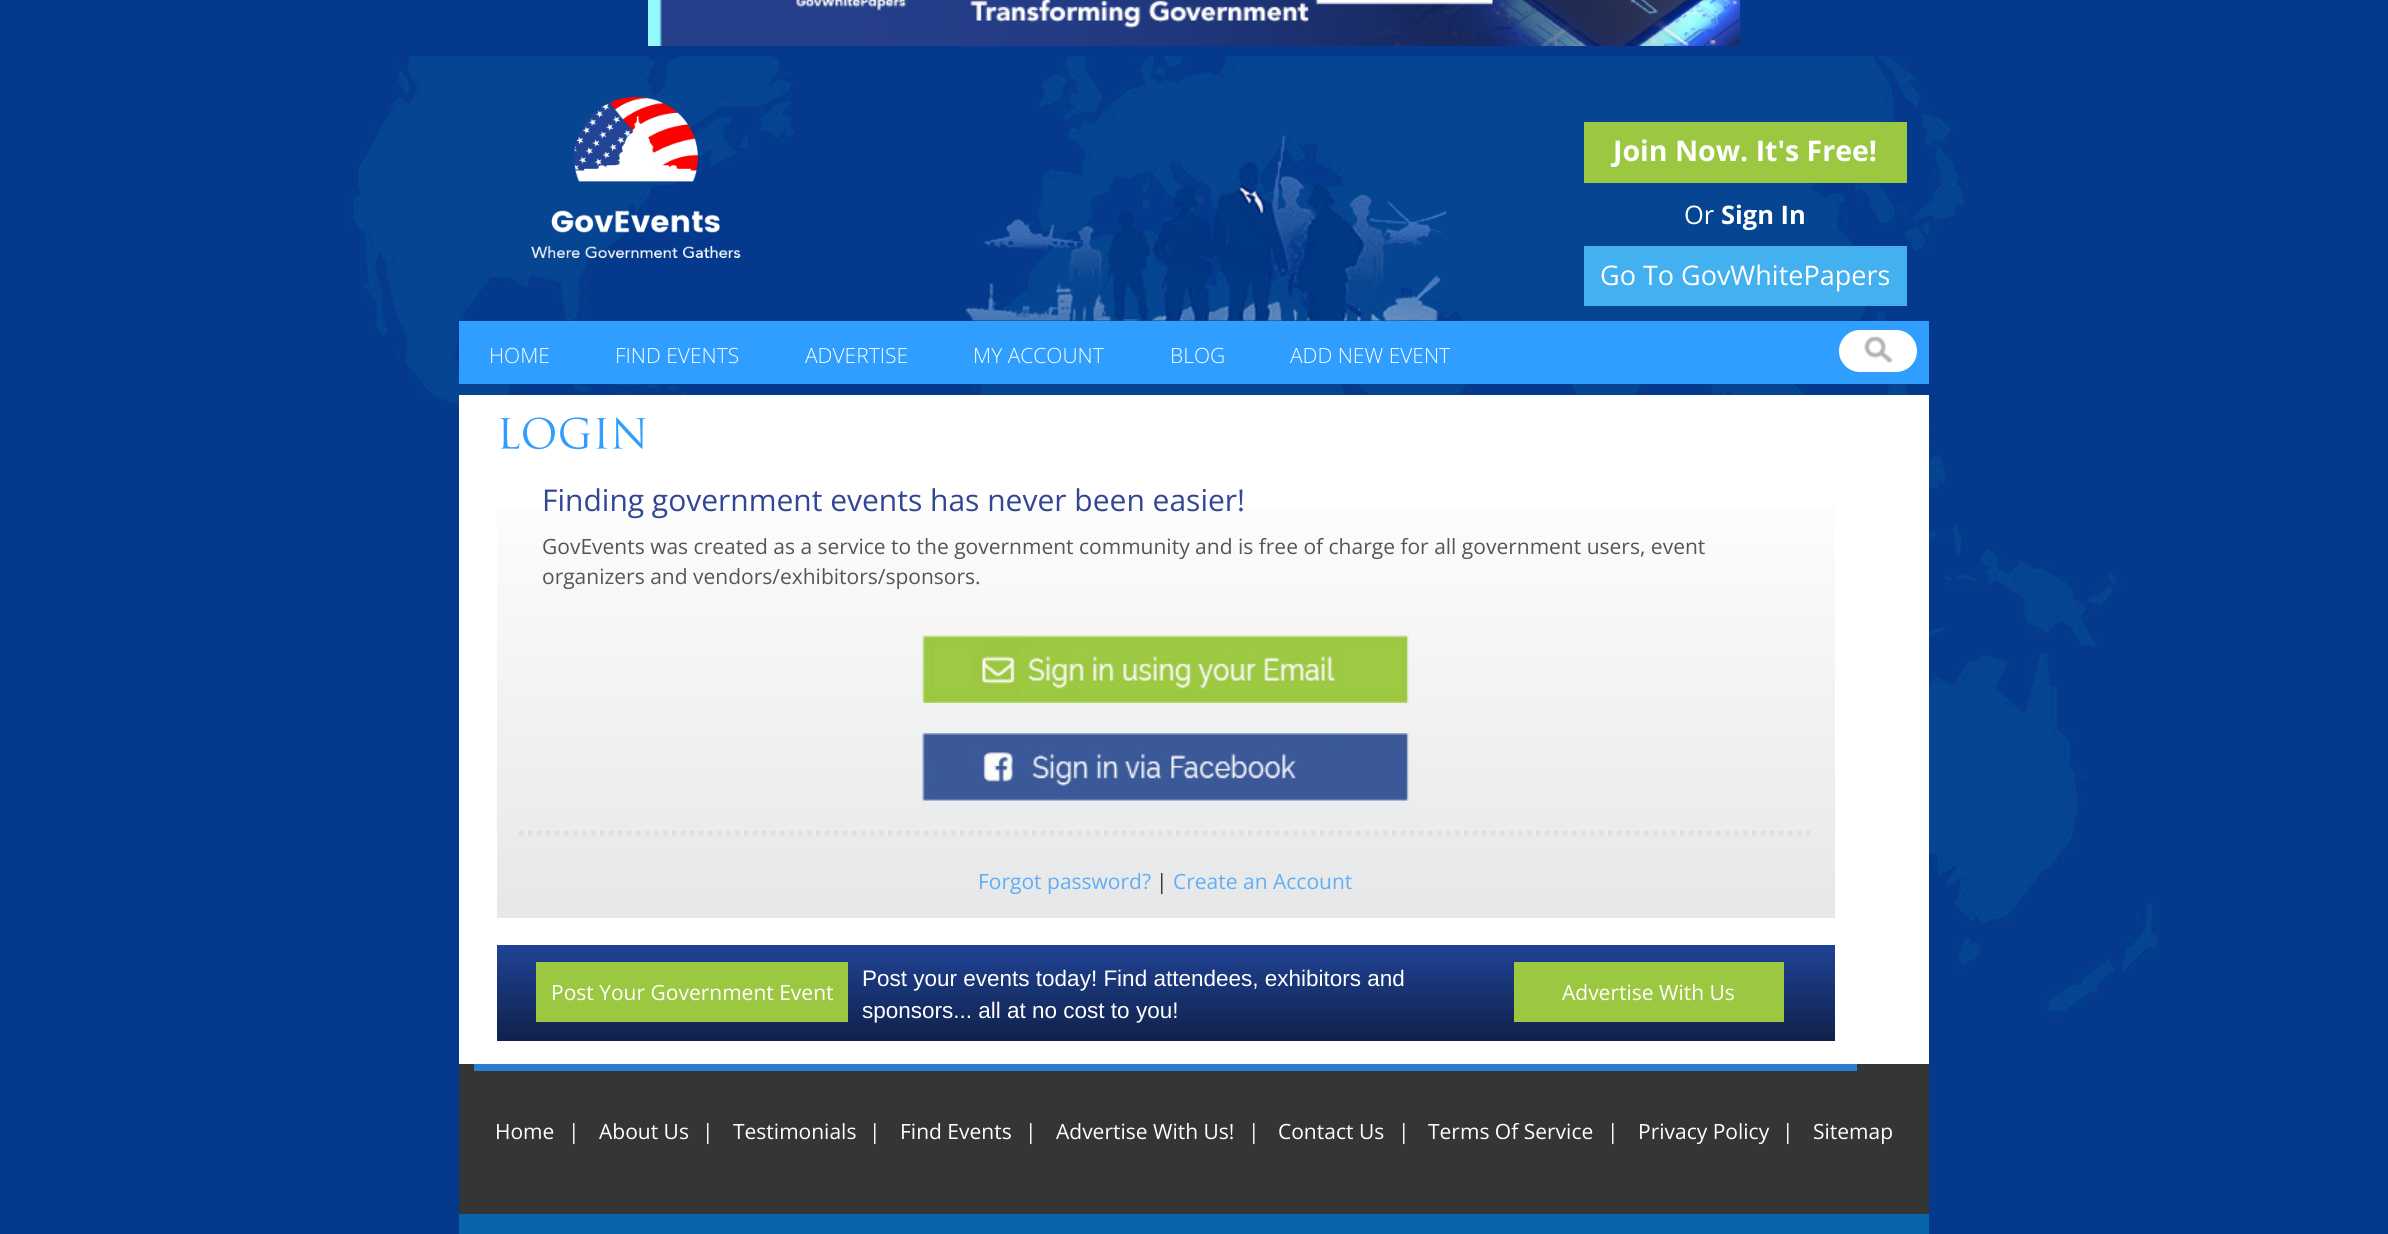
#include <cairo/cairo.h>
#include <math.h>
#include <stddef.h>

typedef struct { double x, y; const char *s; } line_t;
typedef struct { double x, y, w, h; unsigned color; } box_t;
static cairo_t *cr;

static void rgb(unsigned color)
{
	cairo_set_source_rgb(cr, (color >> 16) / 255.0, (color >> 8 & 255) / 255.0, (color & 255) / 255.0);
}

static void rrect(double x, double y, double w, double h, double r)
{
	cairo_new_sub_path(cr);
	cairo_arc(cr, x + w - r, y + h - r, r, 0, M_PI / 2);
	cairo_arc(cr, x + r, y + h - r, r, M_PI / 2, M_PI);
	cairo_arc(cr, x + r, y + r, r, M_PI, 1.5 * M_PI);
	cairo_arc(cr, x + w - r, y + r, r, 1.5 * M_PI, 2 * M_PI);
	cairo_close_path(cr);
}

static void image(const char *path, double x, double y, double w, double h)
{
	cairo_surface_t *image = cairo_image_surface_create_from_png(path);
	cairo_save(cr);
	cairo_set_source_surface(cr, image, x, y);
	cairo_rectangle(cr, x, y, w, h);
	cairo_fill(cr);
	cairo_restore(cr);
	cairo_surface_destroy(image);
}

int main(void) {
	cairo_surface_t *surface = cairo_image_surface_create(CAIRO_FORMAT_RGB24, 2388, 1234);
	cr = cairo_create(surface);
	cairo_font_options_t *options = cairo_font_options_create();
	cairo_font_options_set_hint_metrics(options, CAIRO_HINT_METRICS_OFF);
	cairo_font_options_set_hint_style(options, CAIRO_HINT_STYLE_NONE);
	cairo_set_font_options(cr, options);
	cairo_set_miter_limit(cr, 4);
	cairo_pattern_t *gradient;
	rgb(0x04398d);
	cairo_paint(cr);
	image("img/1.png", 347, 56, 1812, 964);
	image("img/2.png", 648, 0, 1092, 46);
	image("img/3.png", 965, 135, 482, 186);
	image("img/4.png", 531, 97, 210, 161);
	{
		static const box_t items[] = {
			{1584, 122, 323, 61, 0x9cc741},
			{1584, 246, 323, 60, 0x43b0f0},
			{459, 321, 1470, 63, 0x309eff},
		};
		for (size_t i = 0; i < sizeof items / sizeof *items; i++) {
			rgb(items[i].color);
			cairo_rectangle(cr, items[i].x, items[i].y, items[i].w, items[i].h);
			cairo_fill(cr);
		}
	}
	rgb(0xffffff);
	rrect(1839, 330, 78, 42, 21);
	cairo_fill(cr);
	image("img/5.png", 1864, 336, 29, 27);
	{
		static const box_t items[] = {
			{459, 395, 1470, 669, 0xffffff},
			{459, 1064, 1470, 150, 0x353535},
			{474, 1064, 1383, 7, 0x297ed3},
		};
		for (size_t i = 0; i < sizeof items / sizeof *items; i++) {
			rgb(items[i].color);
			cairo_rectangle(cr, items[i].x, items[i].y, items[i].w, items[i].h);
			cairo_fill(cr);
		}
	}
	image("img/6.png", 500, 417, 146, 33);
	gradient = cairo_pattern_create_linear(1166, 460, 1166, 918);
	cairo_pattern_add_color_stop_rgba(gradient, 0, 1, 1, 1, 1);
	cairo_pattern_add_color_stop_rgba(gradient, 1, 0.902, 0.906, 0.91, 1);
	cairo_set_source(cr, gradient);
	cairo_pattern_destroy(gradient);
	cairo_rectangle(cr, 497, 506, 1338, 412);
	cairo_fill(cr);
	image("img/7.png", 922, 635, 487, 68);
	image("img/8.png", 922, 733, 487, 68);
	cairo_new_path(cr);
	cairo_move_to(cr, 519, 833);
	cairo_line_to(cr, 1812, 833);
	rgb(0xdfdfdf);
	cairo_set_line_width(cr, 4.5);
	cairo_set_dash(cr, (double[]){4.5, 4.5}, 2, 0);
	cairo_stroke(cr);
	gradient = cairo_pattern_create_linear(1166, 945, 1166, 1041);
	cairo_pattern_add_color_stop_rgba(gradient, 0, 0.125, 0.263, 0.584, 1);
	cairo_pattern_add_color_stop_rgba(gradient, 1, 0.063, 0.129, 0.294, 1);
	cairo_set_source(cr, gradient);
	cairo_pattern_destroy(gradient);
	cairo_rectangle(cr, 497, 945, 1338, 96);
	cairo_fill(cr);
	{
		static const box_t items[] = {
			{536, 962, 312, 60, 0x9cc741},
			{1514, 962, 270, 60, 0x9cc741},
			{459, 1214, 1470, 20, 0x0764aa},
		};
		for (size_t i = 0; i < sizeof items / sizeof *items; i++) {
			rgb(items[i].color);
			cairo_rectangle(cr, items[i].x, items[i].y, items[i].w, items[i].h);
			cairo_fill(cr);
		}
	}
	cairo_select_font_face(cr, "Open Sans", CAIRO_FONT_SLANT_NORMAL, CAIRO_FONT_WEIGHT_BOLD);
	cairo_set_font_size(cr, 28.5);
	rgb(0xffffff);
	cairo_move_to(cr, 1613, 161);
	cairo_show_text(cr, "Join Now. It's Free!");
	cairo_select_font_face(cr, "Open Sans", CAIRO_FONT_SLANT_NORMAL, CAIRO_FONT_WEIGHT_NORMAL);
	cairo_set_font_size(cr, 25.5);
	cairo_move_to(cr, 1684, 224);
	cairo_show_text(cr, "Or");
	cairo_select_font_face(cr, "Open Sans", CAIRO_FONT_SLANT_NORMAL, CAIRO_FONT_WEIGHT_BOLD);
	cairo_move_to(cr, 1721, 224);
	cairo_show_text(cr, "Sign In");
	cairo_select_font_face(cr, "Open Sans", CAIRO_FONT_SLANT_NORMAL, CAIRO_FONT_WEIGHT_NORMAL);
	cairo_set_font_size(cr, 27);
	cairo_move_to(cr, 1600, 285);
	cairo_show_text(cr, "Go To GovWhitePapers");
	cairo_select_font_face(cr, "Open Sans Light", CAIRO_FONT_SLANT_NORMAL, CAIRO_FONT_WEIGHT_NORMAL);
	cairo_set_font_size(cr, 21);
	{
		static const line_t items[] = {
			{489, 363, "HOME"},
			{615, 363, "FIND EVENTS"},
			{805, 363, "ADVERTISE"},
			{973, 363, "MY ACCOUNT"},
			{1170, 363, "BLOG"},
			{1290, 363, "ADD NEW EVENT"},
		};
		for (size_t i = 0; i < sizeof items / sizeof *items; i++) {
			cairo_move_to(cr, items[i].x, items[i].y);
			cairo_show_text(cr, items[i].s);
		}
	}
	cairo_select_font_face(cr, "Open Sans", CAIRO_FONT_SLANT_NORMAL, CAIRO_FONT_WEIGHT_NORMAL);
	cairo_set_font_size(cr, 30);
	rgb(0x334693);
	cairo_move_to(cr, 542, 511);
	cairo_show_text(cr, "Finding government events has never been easier!");
	cairo_set_font_size(cr, 21);
	rgb(0x555555);
	cairo_move_to(cr, 542, 554);
	cairo_show_text(cr, "GovEvents was created as a service to the government community and is free of charge for all government users, event");
	cairo_move_to(cr, 542, 584);
	cairo_show_text(cr, "organizers and vendors/exhibitors/sponsors.");
	rgb(0x61aef6);
	cairo_move_to(cr, 978, 889);
	cairo_show_text(cr, "Forgot password?");
	rgb(0x333333);
	cairo_move_to(cr, 1156, 889);
	cairo_show_text(cr, "|");
	rgb(0x61aef6);
	cairo_move_to(cr, 1173, 889);
	cairo_show_text(cr, "Create an Account");
	rgb(0xffffff);
	cairo_move_to(cr, 551, 1000);
	cairo_show_text(cr, "Post Your Government Event");
	cairo_select_font_face(cr, "Liberation Sans", CAIRO_FONT_SLANT_NORMAL, CAIRO_FONT_WEIGHT_NORMAL);
	cairo_set_font_size(cr, 22.5);
	cairo_move_to(cr, 862, 986);
	cairo_show_text(cr, "Post your events today! Find attendees, exhibitors and");
	cairo_move_to(cr, 862, 1018);
	cairo_show_text(cr, "sponsors... all at no cost to you!");
	cairo_select_font_face(cr, "Open Sans", CAIRO_FONT_SLANT_NORMAL, CAIRO_FONT_WEIGHT_NORMAL);
	cairo_set_font_size(cr, 21);
	{
		static const line_t items[] = {
			{1562, 1000, "Advertise With Us"},
			{495, 1139, "Home"},
			{568, 1139, "|"},
			{599, 1139, "About Us"},
			{702, 1139, "|"},
			{733, 1139, "Testimonials"},
			{869, 1139, "|"},
			{900, 1139, "Find Events"},
			{1025, 1139, "|"},
			{1056, 1139, "Advertise With Us!"},
			{1248, 1139, "|"},
			{1278, 1139, "Contact Us"},
			{1398, 1139, "|"},
			{1428, 1139, "Terms Of Service"},
			{1607, 1139, "|"},
			{1638, 1139, "Privacy Policy"},
			{1782, 1139, "|"},
			{1813, 1139, "Sitemap"},
		};
		for (size_t i = 0; i < sizeof items / sizeof *items; i++) {
			cairo_move_to(cr, items[i].x, items[i].y);
			cairo_show_text(cr, items[i].s);
		}
	}
	cairo_surface_write_to_png(surface, "page.png");
	cairo_font_options_destroy(options);
	cairo_destroy(cr);
	cairo_surface_destroy(surface);
	return 0;
}
